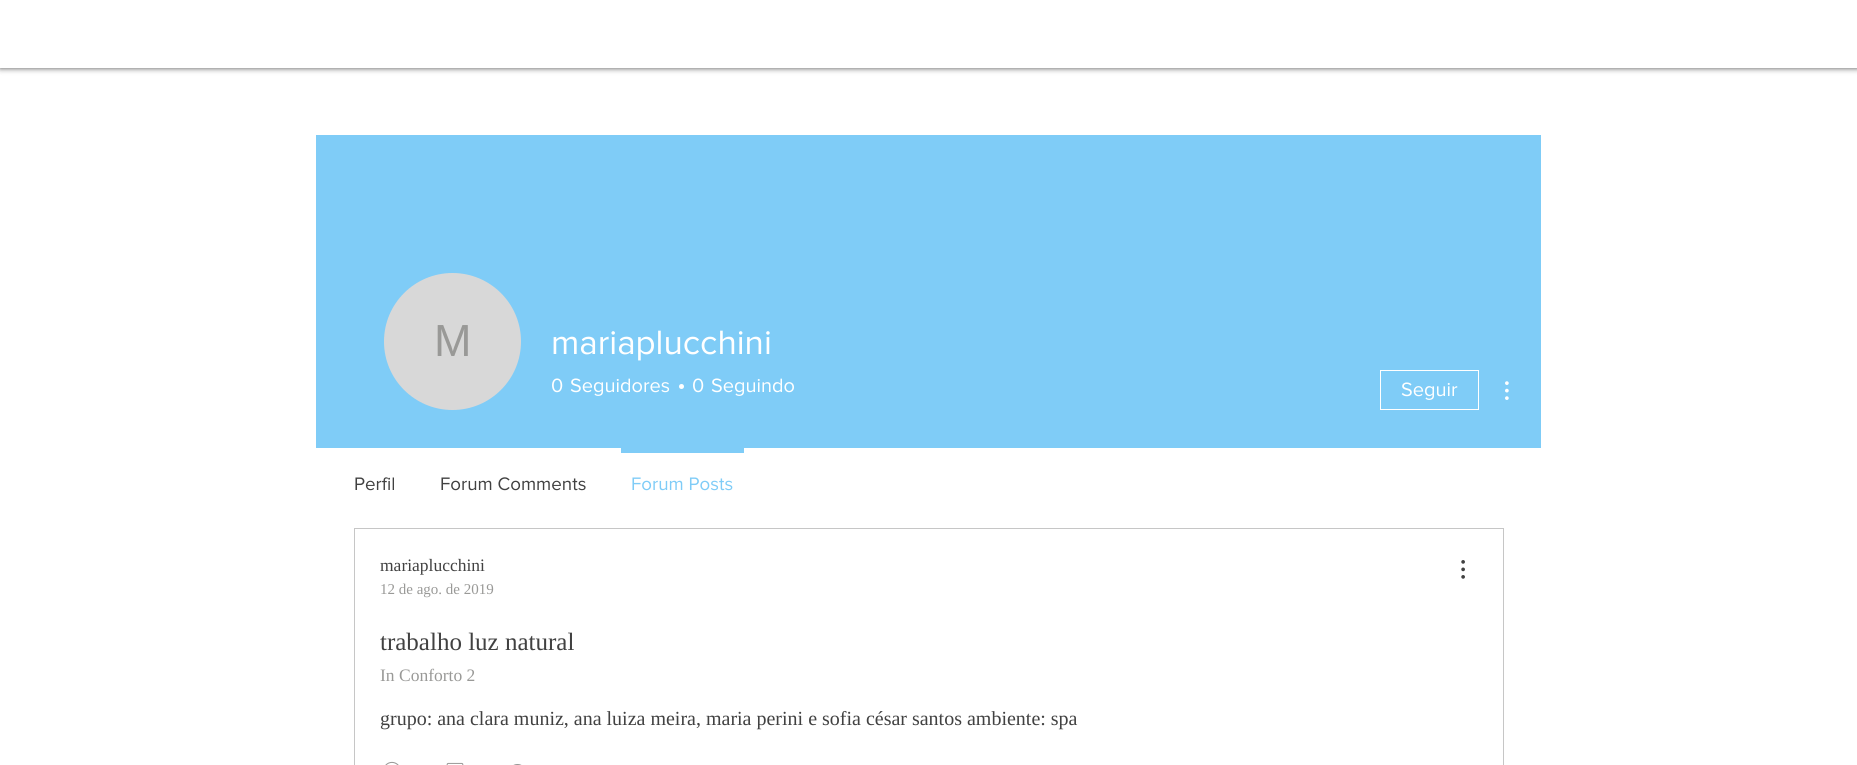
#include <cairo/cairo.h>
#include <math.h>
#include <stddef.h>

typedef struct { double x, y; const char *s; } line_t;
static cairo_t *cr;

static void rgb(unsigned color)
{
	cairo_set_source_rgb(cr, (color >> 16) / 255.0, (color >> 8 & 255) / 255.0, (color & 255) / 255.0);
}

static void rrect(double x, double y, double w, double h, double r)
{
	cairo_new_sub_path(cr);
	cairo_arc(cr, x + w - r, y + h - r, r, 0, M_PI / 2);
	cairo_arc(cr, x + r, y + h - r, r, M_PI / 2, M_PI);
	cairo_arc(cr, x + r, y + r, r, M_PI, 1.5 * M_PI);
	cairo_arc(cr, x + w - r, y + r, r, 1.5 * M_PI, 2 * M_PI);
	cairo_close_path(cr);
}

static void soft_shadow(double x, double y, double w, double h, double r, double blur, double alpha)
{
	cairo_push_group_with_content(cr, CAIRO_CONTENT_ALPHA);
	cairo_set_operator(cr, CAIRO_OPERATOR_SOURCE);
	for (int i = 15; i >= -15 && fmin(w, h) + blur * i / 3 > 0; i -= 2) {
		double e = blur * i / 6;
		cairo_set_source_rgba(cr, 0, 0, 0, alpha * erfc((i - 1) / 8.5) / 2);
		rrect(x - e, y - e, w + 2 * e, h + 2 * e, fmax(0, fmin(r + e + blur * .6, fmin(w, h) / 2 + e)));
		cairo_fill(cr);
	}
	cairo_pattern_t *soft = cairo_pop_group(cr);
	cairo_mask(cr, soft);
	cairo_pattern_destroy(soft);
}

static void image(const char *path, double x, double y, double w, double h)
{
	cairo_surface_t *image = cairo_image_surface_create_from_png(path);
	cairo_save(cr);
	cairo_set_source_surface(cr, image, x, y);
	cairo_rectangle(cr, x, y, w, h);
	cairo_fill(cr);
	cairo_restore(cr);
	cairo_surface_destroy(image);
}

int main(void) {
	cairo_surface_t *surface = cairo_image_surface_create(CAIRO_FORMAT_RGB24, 1857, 765);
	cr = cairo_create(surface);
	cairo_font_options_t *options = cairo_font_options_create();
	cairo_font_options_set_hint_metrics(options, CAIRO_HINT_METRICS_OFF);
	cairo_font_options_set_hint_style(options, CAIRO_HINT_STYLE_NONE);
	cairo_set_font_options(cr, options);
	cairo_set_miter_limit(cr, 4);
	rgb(0xffffff);
	cairo_paint(cr);
	cairo_save(cr);
	cairo_set_fill_rule(cr, CAIRO_FILL_RULE_EVEN_ODD);
	cairo_new_path(cr);
	cairo_move_to(cr, 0, 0);
	cairo_line_to(cr, 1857, 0);
	cairo_line_to(cr, 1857, 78);
	cairo_line_to(cr, 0, 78);
	cairo_close_path(cr);
	cairo_move_to(cr, 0, 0);
	cairo_line_to(cr, 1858, 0);
	cairo_line_to(cr, 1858, 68);
	cairo_line_to(cr, 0, 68);
	cairo_close_path(cr);
	cairo_clip(cr);
	rgb(0x000000);
	soft_shadow(0, 0, 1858, 68, 0, 3, 0.7);
	cairo_restore(cr);
	cairo_set_source_rgba(cr, 1, 1, 1, 0.6);
	cairo_rectangle(cr, 0, 67, 1857, 1);
	cairo_fill(cr);
	rgb(0x7fccf7);
	cairo_rectangle(cr, 316, 135, 1225, 313);
	cairo_fill(cr);
	rgb(0xd8d8d8);
	cairo_arc(cr, 452.5, 341.5, 68.5, 0, 2 * M_PI);
	cairo_fill(cr);
	rgb(0xffffff);
	cairo_arc(cr, 681.5, 386.5, 2.5, 0, 2 * M_PI);
	cairo_fill(cr);
	cairo_rectangle(cr, 1380.5, 370.5, 98, 39);
	cairo_set_line_width(cr, 1);
	cairo_stroke(cr);
	image("img/1.png", 1505, 381, 4, 19);
	rgb(0x7fccf7);
	cairo_rectangle(cr, 621, 448, 123, 5);
	cairo_fill(cr);
	cairo_rectangle(cr, 354.5, 528.5, 1149, 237);
	rgb(0xc6c6c6);
	cairo_stroke(cr);
	image("img/2.png", 1461, 560, 4, 19);
	image("img/3.png", 385, 761, 14, 4);
	image("img/4.png", 446, 762, 18, 3);
	image("img/5.png", 513, 764, 9, 1);
	cairo_select_font_face(cr, "Liberation Sans", CAIRO_FONT_SLANT_NORMAL, CAIRO_FONT_WEIGHT_NORMAL);
	cairo_set_font_size(cr, 45);
	rgb(0x999997);
	cairo_move_to(cr, 434, 356);
	cairo_show_text(cr, "M");
	cairo_select_font_face(cr, "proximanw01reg", CAIRO_FONT_SLANT_NORMAL, CAIRO_FONT_WEIGHT_NORMAL);
	cairo_set_font_size(cr, 35);
	rgb(0xffffff);
	cairo_move_to(cr, 551, 354);
	cairo_show_text(cr, "mariaplucchini");
	cairo_set_font_size(cr, 20);
	{
		static const line_t items[] = {
			{551, 392, "0"},
			{570, 392, "Seguidores"},
			{692, 392, "0"},
			{711, 392, "Seguindo"},
			{1401, 396, "Seguir"},
		};
		for (size_t i = 0; i < sizeof items / sizeof *items; i++) {
			cairo_move_to(cr, items[i].x, items[i].y);
			cairo_show_text(cr, items[i].s);
		}
	}
	cairo_set_font_size(cr, 18.75);
	rgb(0x414141);
	cairo_move_to(cr, 354, 490);
	cairo_show_text(cr, "Perfil");
	cairo_move_to(cr, 440, 490);
	cairo_show_text(cr, "Forum Comments");
	rgb(0x7fccf7);
	cairo_move_to(cr, 631, 490);
	cairo_show_text(cr, "Forum Posts");
	cairo_select_font_face(cr, "Liberation Serif", CAIRO_FONT_SLANT_NORMAL, CAIRO_FONT_WEIGHT_NORMAL);
	cairo_set_font_size(cr, 17.5);
	rgb(0x414141);
	cairo_move_to(cr, 380, 571);
	cairo_show_text(cr, "mariaplucchini");
	cairo_set_font_size(cr, 15);
	rgb(0x999997);
	cairo_move_to(cr, 380, 594);
	cairo_show_text(cr, "12 de ago. de 2019");
	cairo_set_font_size(cr, 25);
	rgb(0x414141);
	cairo_move_to(cr, 380, 650);
	cairo_show_text(cr, "trabalho luz natural");
	cairo_set_font_size(cr, 17.5);
	rgb(0x999997);
	cairo_move_to(cr, 380, 681);
	cairo_show_text(cr, "In Conforto 2");
	cairo_set_font_size(cr, 20);
	rgb(0x414141);
	cairo_move_to(cr, 380, 725);
	cairo_show_text(cr, "grupo: ana clara muniz, ana luiza meira, maria perini e sofia césar santos ambiente: spa");
	cairo_surface_write_to_png(surface, "page.png");
	cairo_font_options_destroy(options);
	cairo_destroy(cr);
	cairo_surface_destroy(surface);
	return 0;
}
